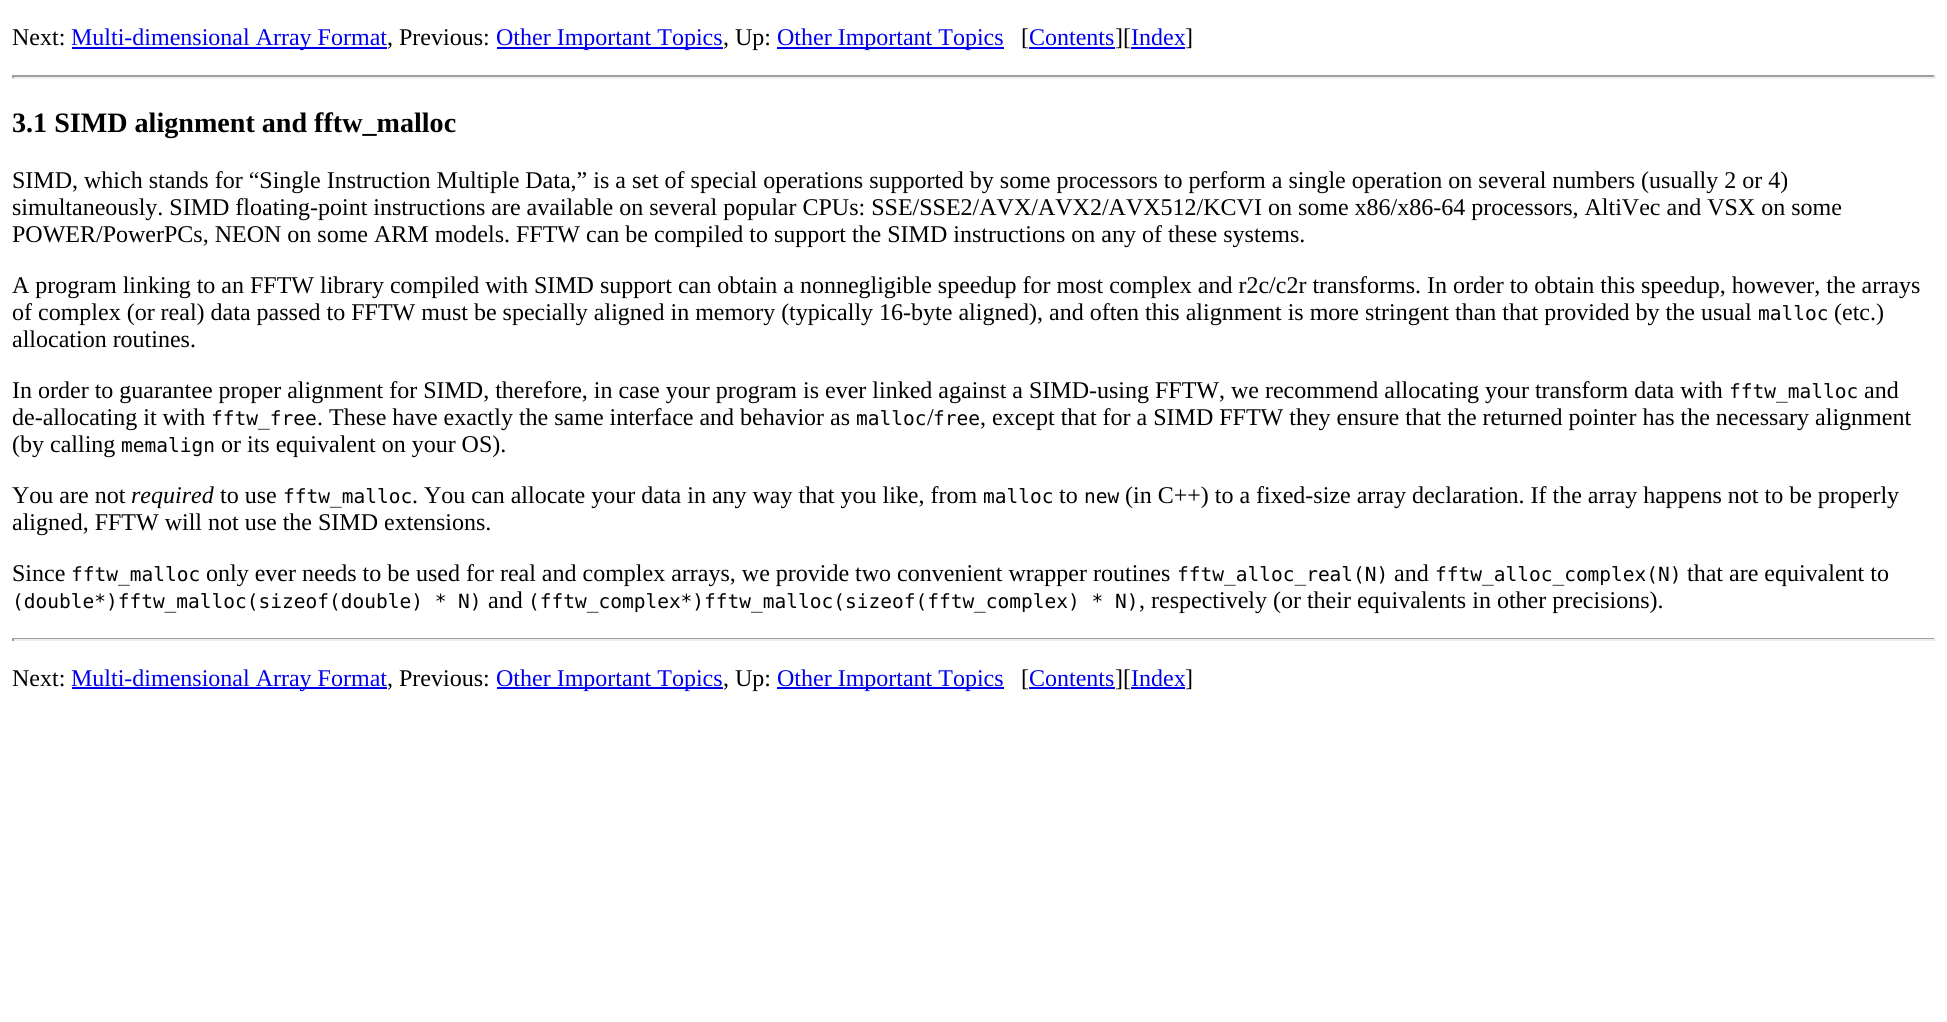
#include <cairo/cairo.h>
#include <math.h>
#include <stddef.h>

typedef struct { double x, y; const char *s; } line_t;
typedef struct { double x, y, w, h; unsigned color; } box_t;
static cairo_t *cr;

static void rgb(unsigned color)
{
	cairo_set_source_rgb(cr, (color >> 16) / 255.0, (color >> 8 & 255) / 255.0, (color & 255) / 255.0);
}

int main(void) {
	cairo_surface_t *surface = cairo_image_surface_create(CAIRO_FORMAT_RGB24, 1947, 1022);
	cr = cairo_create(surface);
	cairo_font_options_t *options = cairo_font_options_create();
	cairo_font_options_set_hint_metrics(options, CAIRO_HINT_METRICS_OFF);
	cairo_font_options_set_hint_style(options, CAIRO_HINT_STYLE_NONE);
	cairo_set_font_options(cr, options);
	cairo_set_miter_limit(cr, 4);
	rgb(0xffffff);
	cairo_paint(cr);
	{
		static const box_t items[] = {
			{72, 47, 315, 2, 0x0000ee},
			{497, 47, 226, 2, 0x0000ee},
			{777, 47, 227, 2, 0x0000ee},
			{1029, 47, 86, 2, 0x0000ee},
			{1131, 47, 54, 2, 0x0000ee},
			{12, 75, 1923, 2, 0x9f9f9f},
			{1934, 75, 2, 3, 0xeeeeee},
			{12, 77, 1923, 2, 0xeeeeee},
			{12, 75, 2, 3, 0x9f9f9f},
			{12, 638, 1923, 1, 0x9f9f9f},
			{1934, 638, 2, 3, 0xeeeeee},
			{12, 639, 1923, 2, 0xeeeeee},
			{12, 638, 2, 3, 0x9f9f9f},
			{72, 687, 315, 2, 0x0000ee},
			{497, 687, 226, 2, 0x0000ee},
			{777, 687, 227, 2, 0x0000ee},
			{1029, 687, 86, 2, 0x0000ee},
			{1131, 687, 54, 2, 0x0000ee},
		};
		for (size_t i = 0; i < sizeof items / sizeof *items; i++) {
			rgb(items[i].color);
			cairo_rectangle(cr, items[i].x, items[i].y, items[i].w, items[i].h);
			cairo_fill(cr);
		}
	}
	cairo_select_font_face(cr, "Liberation Serif", CAIRO_FONT_SLANT_NORMAL, CAIRO_FONT_WEIGHT_NORMAL);
	cairo_set_font_size(cr, 24);
	rgb(0x000000);
	cairo_move_to(cr, 12, 45);
	cairo_show_text(cr, "Next:");
	rgb(0x0000ee);
	cairo_move_to(cr, 71, 45);
	cairo_show_text(cr, "Multi-dimensional Array Format");
	rgb(0x000000);
	cairo_move_to(cr, 387, 45);
	cairo_show_text(cr, ", Previous:");
	rgb(0x0000ee);
	cairo_move_to(cr, 496, 45);
	cairo_show_text(cr, "Other Important Topics");
	rgb(0x000000);
	cairo_move_to(cr, 723, 45);
	cairo_show_text(cr, ", Up:");
	rgb(0x0000ee);
	cairo_move_to(cr, 777, 45);
	cairo_show_text(cr, "Other Important Topics");
	rgb(0x000000);
	cairo_move_to(cr, 1021, 45);
	cairo_show_text(cr, "[");
	rgb(0x0000ee);
	cairo_move_to(cr, 1029, 45);
	cairo_show_text(cr, "Contents");
	rgb(0x000000);
	cairo_move_to(cr, 1115, 45);
	cairo_show_text(cr, "][");
	rgb(0x0000ee);
	cairo_move_to(cr, 1131, 45);
	cairo_show_text(cr, "Index");
	rgb(0x000000);
	cairo_move_to(cr, 1185, 45);
	cairo_show_text(cr, "]");
	cairo_select_font_face(cr, "Liberation Serif", CAIRO_FONT_SLANT_NORMAL, CAIRO_FONT_WEIGHT_BOLD);
	cairo_set_font_size(cr, 28.1);
	cairo_move_to(cr, 12, 132);
	cairo_show_text(cr, "3.1 SIMD alignment and fftw_malloc");
	cairo_select_font_face(cr, "Liberation Serif", CAIRO_FONT_SLANT_NORMAL, CAIRO_FONT_WEIGHT_NORMAL);
	cairo_set_font_size(cr, 24);
	{
		static const line_t items[] = {
			{12, 188, "SIMD, which stands for “Single Instruction Multiple Data,” is a set of special operations supported by some processors to perform a single operation on several numbers (usually 2 or 4)"},
			{12, 215, "simultaneously. SIMD floating-point instructions are available on several popular CPUs: SSE/SSE2/AVX/AVX2/AVX512/KCVI on some x86/x86-64 processors, AltiVec and VSX on some"},
			{12, 242, "POWER/PowerPCs, NEON on some ARM models. FFTW can be compiled to support the SIMD instructions on any of these systems."},
			{12, 293, "A program linking to an FFTW library compiled with SIMD support can obtain a nonnegligible speedup for most complex and r2c/c2r transforms. In order to obtain this speedup, however, the arrays"},
			{12, 320, "of complex (or real) data passed to FFTW must be specially aligned in memory (typically 16-byte aligned), and often this alignment is more stringent than that provided by the usual"},
		};
		for (size_t i = 0; i < sizeof items / sizeof *items; i++) {
			cairo_move_to(cr, items[i].x, items[i].y);
			cairo_show_text(cr, items[i].s);
		}
	}
	cairo_select_font_face(cr, "DejaVu Sans Mono", CAIRO_FONT_SLANT_NORMAL, CAIRO_FONT_WEIGHT_NORMAL);
	cairo_set_font_size(cr, 19.5);
	cairo_move_to(cr, 1758, 320);
	cairo_show_text(cr, "malloc");
	cairo_select_font_face(cr, "Liberation Serif", CAIRO_FONT_SLANT_NORMAL, CAIRO_FONT_WEIGHT_NORMAL);
	cairo_set_font_size(cr, 24);
	{
		static const line_t items[] = {
			{1834, 320, "(etc.)"},
			{12, 347, "allocation routines."},
			{12, 398, "In order to guarantee proper alignment for SIMD, therefore, in case your program is ever linked against a SIMD-using FFTW, we recommend allocating your transform data with"},
		};
		for (size_t i = 0; i < sizeof items / sizeof *items; i++) {
			cairo_move_to(cr, items[i].x, items[i].y);
			cairo_show_text(cr, items[i].s);
		}
	}
	cairo_select_font_face(cr, "DejaVu Sans Mono", CAIRO_FONT_SLANT_NORMAL, CAIRO_FONT_WEIGHT_NORMAL);
	cairo_set_font_size(cr, 19.5);
	cairo_move_to(cr, 1729, 398);
	cairo_show_text(cr, "fftw_malloc");
	cairo_select_font_face(cr, "Liberation Serif", CAIRO_FONT_SLANT_NORMAL, CAIRO_FONT_WEIGHT_NORMAL);
	cairo_set_font_size(cr, 24);
	cairo_move_to(cr, 1864, 398);
	cairo_show_text(cr, "and");
	cairo_move_to(cr, 12, 425);
	cairo_show_text(cr, "de-allocating it with");
	cairo_select_font_face(cr, "DejaVu Sans Mono", CAIRO_FONT_SLANT_NORMAL, CAIRO_FONT_WEIGHT_NORMAL);
	cairo_set_font_size(cr, 19.5);
	cairo_move_to(cr, 211, 425);
	cairo_show_text(cr, "fftw_free");
	cairo_select_font_face(cr, "Liberation Serif", CAIRO_FONT_SLANT_NORMAL, CAIRO_FONT_WEIGHT_NORMAL);
	cairo_set_font_size(cr, 24);
	cairo_move_to(cr, 317, 425);
	cairo_show_text(cr, ". These have exactly the same interface and behavior as");
	cairo_select_font_face(cr, "DejaVu Sans Mono", CAIRO_FONT_SLANT_NORMAL, CAIRO_FONT_WEIGHT_NORMAL);
	cairo_set_font_size(cr, 19.5);
	cairo_move_to(cr, 856, 425);
	cairo_show_text(cr, "malloc");
	cairo_select_font_face(cr, "Liberation Serif", CAIRO_FONT_SLANT_NORMAL, CAIRO_FONT_WEIGHT_NORMAL);
	cairo_set_font_size(cr, 24);
	cairo_move_to(cr, 927, 425);
	cairo_show_text(cr, "/");
	cairo_select_font_face(cr, "DejaVu Sans Mono", CAIRO_FONT_SLANT_NORMAL, CAIRO_FONT_WEIGHT_NORMAL);
	cairo_set_font_size(cr, 19.5);
	cairo_move_to(cr, 933, 425);
	cairo_show_text(cr, "free");
	cairo_select_font_face(cr, "Liberation Serif", CAIRO_FONT_SLANT_NORMAL, CAIRO_FONT_WEIGHT_NORMAL);
	cairo_set_font_size(cr, 24);
	cairo_move_to(cr, 980, 425);
	cairo_show_text(cr, ", except that for a SIMD FFTW they ensure that the returned pointer has the necessary alignment");
	cairo_move_to(cr, 12, 452);
	cairo_show_text(cr, "(by calling");
	cairo_select_font_face(cr, "DejaVu Sans Mono", CAIRO_FONT_SLANT_NORMAL, CAIRO_FONT_WEIGHT_NORMAL);
	cairo_set_font_size(cr, 19.5);
	cairo_move_to(cr, 121, 452);
	cairo_show_text(cr, "memalign");
	cairo_select_font_face(cr, "Liberation Serif", CAIRO_FONT_SLANT_NORMAL, CAIRO_FONT_WEIGHT_NORMAL);
	cairo_set_font_size(cr, 24);
	cairo_move_to(cr, 221, 452);
	cairo_show_text(cr, "or its equivalent on your OS).");
	cairo_move_to(cr, 12, 503);
	cairo_show_text(cr, "You are not");
	cairo_select_font_face(cr, "Liberation Serif", CAIRO_FONT_SLANT_ITALIC, CAIRO_FONT_WEIGHT_NORMAL);
	cairo_move_to(cr, 131, 503);
	cairo_show_text(cr, "required");
	cairo_select_font_face(cr, "Liberation Serif", CAIRO_FONT_SLANT_NORMAL, CAIRO_FONT_WEIGHT_NORMAL);
	cairo_move_to(cr, 220, 503);
	cairo_show_text(cr, "to use");
	cairo_select_font_face(cr, "DejaVu Sans Mono", CAIRO_FONT_SLANT_NORMAL, CAIRO_FONT_WEIGHT_NORMAL);
	cairo_set_font_size(cr, 19.5);
	cairo_move_to(cr, 283, 503);
	cairo_show_text(cr, "fftw_malloc");
	cairo_select_font_face(cr, "Liberation Serif", CAIRO_FONT_SLANT_NORMAL, CAIRO_FONT_WEIGHT_NORMAL);
	cairo_set_font_size(cr, 24);
	cairo_move_to(cr, 412, 503);
	cairo_show_text(cr, ". You can allocate your data in any way that you like, from");
	cairo_select_font_face(cr, "DejaVu Sans Mono", CAIRO_FONT_SLANT_NORMAL, CAIRO_FONT_WEIGHT_NORMAL);
	cairo_set_font_size(cr, 19.5);
	cairo_move_to(cr, 983, 503);
	cairo_show_text(cr, "malloc");
	cairo_select_font_face(cr, "Liberation Serif", CAIRO_FONT_SLANT_NORMAL, CAIRO_FONT_WEIGHT_NORMAL);
	cairo_set_font_size(cr, 24);
	cairo_move_to(cr, 1059, 503);
	cairo_show_text(cr, "to");
	cairo_select_font_face(cr, "DejaVu Sans Mono", CAIRO_FONT_SLANT_NORMAL, CAIRO_FONT_WEIGHT_NORMAL);
	cairo_set_font_size(cr, 19.5);
	cairo_move_to(cr, 1084, 503);
	cairo_show_text(cr, "new");
	cairo_select_font_face(cr, "Liberation Serif", CAIRO_FONT_SLANT_NORMAL, CAIRO_FONT_WEIGHT_NORMAL);
	cairo_set_font_size(cr, 24);
	{
		static const line_t items[] = {
			{1125, 503, "(in C++) to a fixed-size array declaration. If the array happens not to be properly"},
			{12, 530, "aligned, FFTW will not use the SIMD extensions."},
			{12, 581, "Since"},
		};
		for (size_t i = 0; i < sizeof items / sizeof *items; i++) {
			cairo_move_to(cr, items[i].x, items[i].y);
			cairo_show_text(cr, items[i].s);
		}
	}
	cairo_select_font_face(cr, "DejaVu Sans Mono", CAIRO_FONT_SLANT_NORMAL, CAIRO_FONT_WEIGHT_NORMAL);
	cairo_set_font_size(cr, 19.5);
	cairo_move_to(cr, 71, 581);
	cairo_show_text(cr, "fftw_malloc");
	cairo_select_font_face(cr, "Liberation Serif", CAIRO_FONT_SLANT_NORMAL, CAIRO_FONT_WEIGHT_NORMAL);
	cairo_set_font_size(cr, 24);
	cairo_move_to(cr, 206, 581);
	cairo_show_text(cr, "only ever needs to be used for real and complex arrays, we provide two convenient wrapper routines");
	cairo_select_font_face(cr, "DejaVu Sans Mono", CAIRO_FONT_SLANT_NORMAL, CAIRO_FONT_WEIGHT_NORMAL);
	cairo_set_font_size(cr, 19.5);
	cairo_move_to(cr, 1177, 581);
	cairo_show_text(cr, "fftw_alloc_real(N)");
	cairo_select_font_face(cr, "Liberation Serif", CAIRO_FONT_SLANT_NORMAL, CAIRO_FONT_WEIGHT_NORMAL);
	cairo_set_font_size(cr, 24);
	cairo_move_to(cr, 1394, 581);
	cairo_show_text(cr, "and");
	cairo_select_font_face(cr, "DejaVu Sans Mono", CAIRO_FONT_SLANT_NORMAL, CAIRO_FONT_WEIGHT_NORMAL);
	cairo_set_font_size(cr, 19.5);
	cairo_move_to(cr, 1435, 581);
	cairo_show_text(cr, "fftw_alloc_complex(N)");
	cairo_select_font_face(cr, "Liberation Serif", CAIRO_FONT_SLANT_NORMAL, CAIRO_FONT_WEIGHT_NORMAL);
	cairo_set_font_size(cr, 24);
	cairo_move_to(cr, 1687, 581);
	cairo_show_text(cr, "that are equivalent to");
	cairo_select_font_face(cr, "DejaVu Sans Mono", CAIRO_FONT_SLANT_NORMAL, CAIRO_FONT_WEIGHT_NORMAL);
	cairo_set_font_size(cr, 19.5);
	cairo_move_to(cr, 12, 608);
	cairo_show_text(cr, "(double*)fftw_malloc(sizeof(double) * N)");
	cairo_select_font_face(cr, "Liberation Serif", CAIRO_FONT_SLANT_NORMAL, CAIRO_FONT_WEIGHT_NORMAL);
	cairo_set_font_size(cr, 24);
	cairo_move_to(cr, 488, 608);
	cairo_show_text(cr, "and");
	cairo_select_font_face(cr, "DejaVu Sans Mono", CAIRO_FONT_SLANT_NORMAL, CAIRO_FONT_WEIGHT_NORMAL);
	cairo_set_font_size(cr, 19.5);
	cairo_move_to(cr, 528, 608);
	cairo_show_text(cr, "(fftw_complex*)fftw_malloc(sizeof(fftw_complex) * N)");
	cairo_select_font_face(cr, "Liberation Serif", CAIRO_FONT_SLANT_NORMAL, CAIRO_FONT_WEIGHT_NORMAL);
	cairo_set_font_size(cr, 24);
	cairo_move_to(cr, 1139, 608);
	cairo_show_text(cr, ", respectively (or their equivalents in other precisions).");
	cairo_move_to(cr, 12, 686);
	cairo_show_text(cr, "Next:");
	rgb(0x0000ee);
	cairo_move_to(cr, 71, 686);
	cairo_show_text(cr, "Multi-dimensional Array Format");
	rgb(0x000000);
	cairo_move_to(cr, 387, 686);
	cairo_show_text(cr, ", Previous:");
	rgb(0x0000ee);
	cairo_move_to(cr, 496, 686);
	cairo_show_text(cr, "Other Important Topics");
	rgb(0x000000);
	cairo_move_to(cr, 723, 686);
	cairo_show_text(cr, ", Up:");
	rgb(0x0000ee);
	cairo_move_to(cr, 777, 686);
	cairo_show_text(cr, "Other Important Topics");
	rgb(0x000000);
	cairo_move_to(cr, 1021, 686);
	cairo_show_text(cr, "[");
	rgb(0x0000ee);
	cairo_move_to(cr, 1029, 686);
	cairo_show_text(cr, "Contents");
	rgb(0x000000);
	cairo_move_to(cr, 1115, 686);
	cairo_show_text(cr, "][");
	rgb(0x0000ee);
	cairo_move_to(cr, 1131, 686);
	cairo_show_text(cr, "Index");
	rgb(0x000000);
	cairo_move_to(cr, 1185, 686);
	cairo_show_text(cr, "]");
	cairo_surface_write_to_png(surface, "page.png");
	cairo_font_options_destroy(options);
	cairo_destroy(cr);
	cairo_surface_destroy(surface);
	return 0;
}
